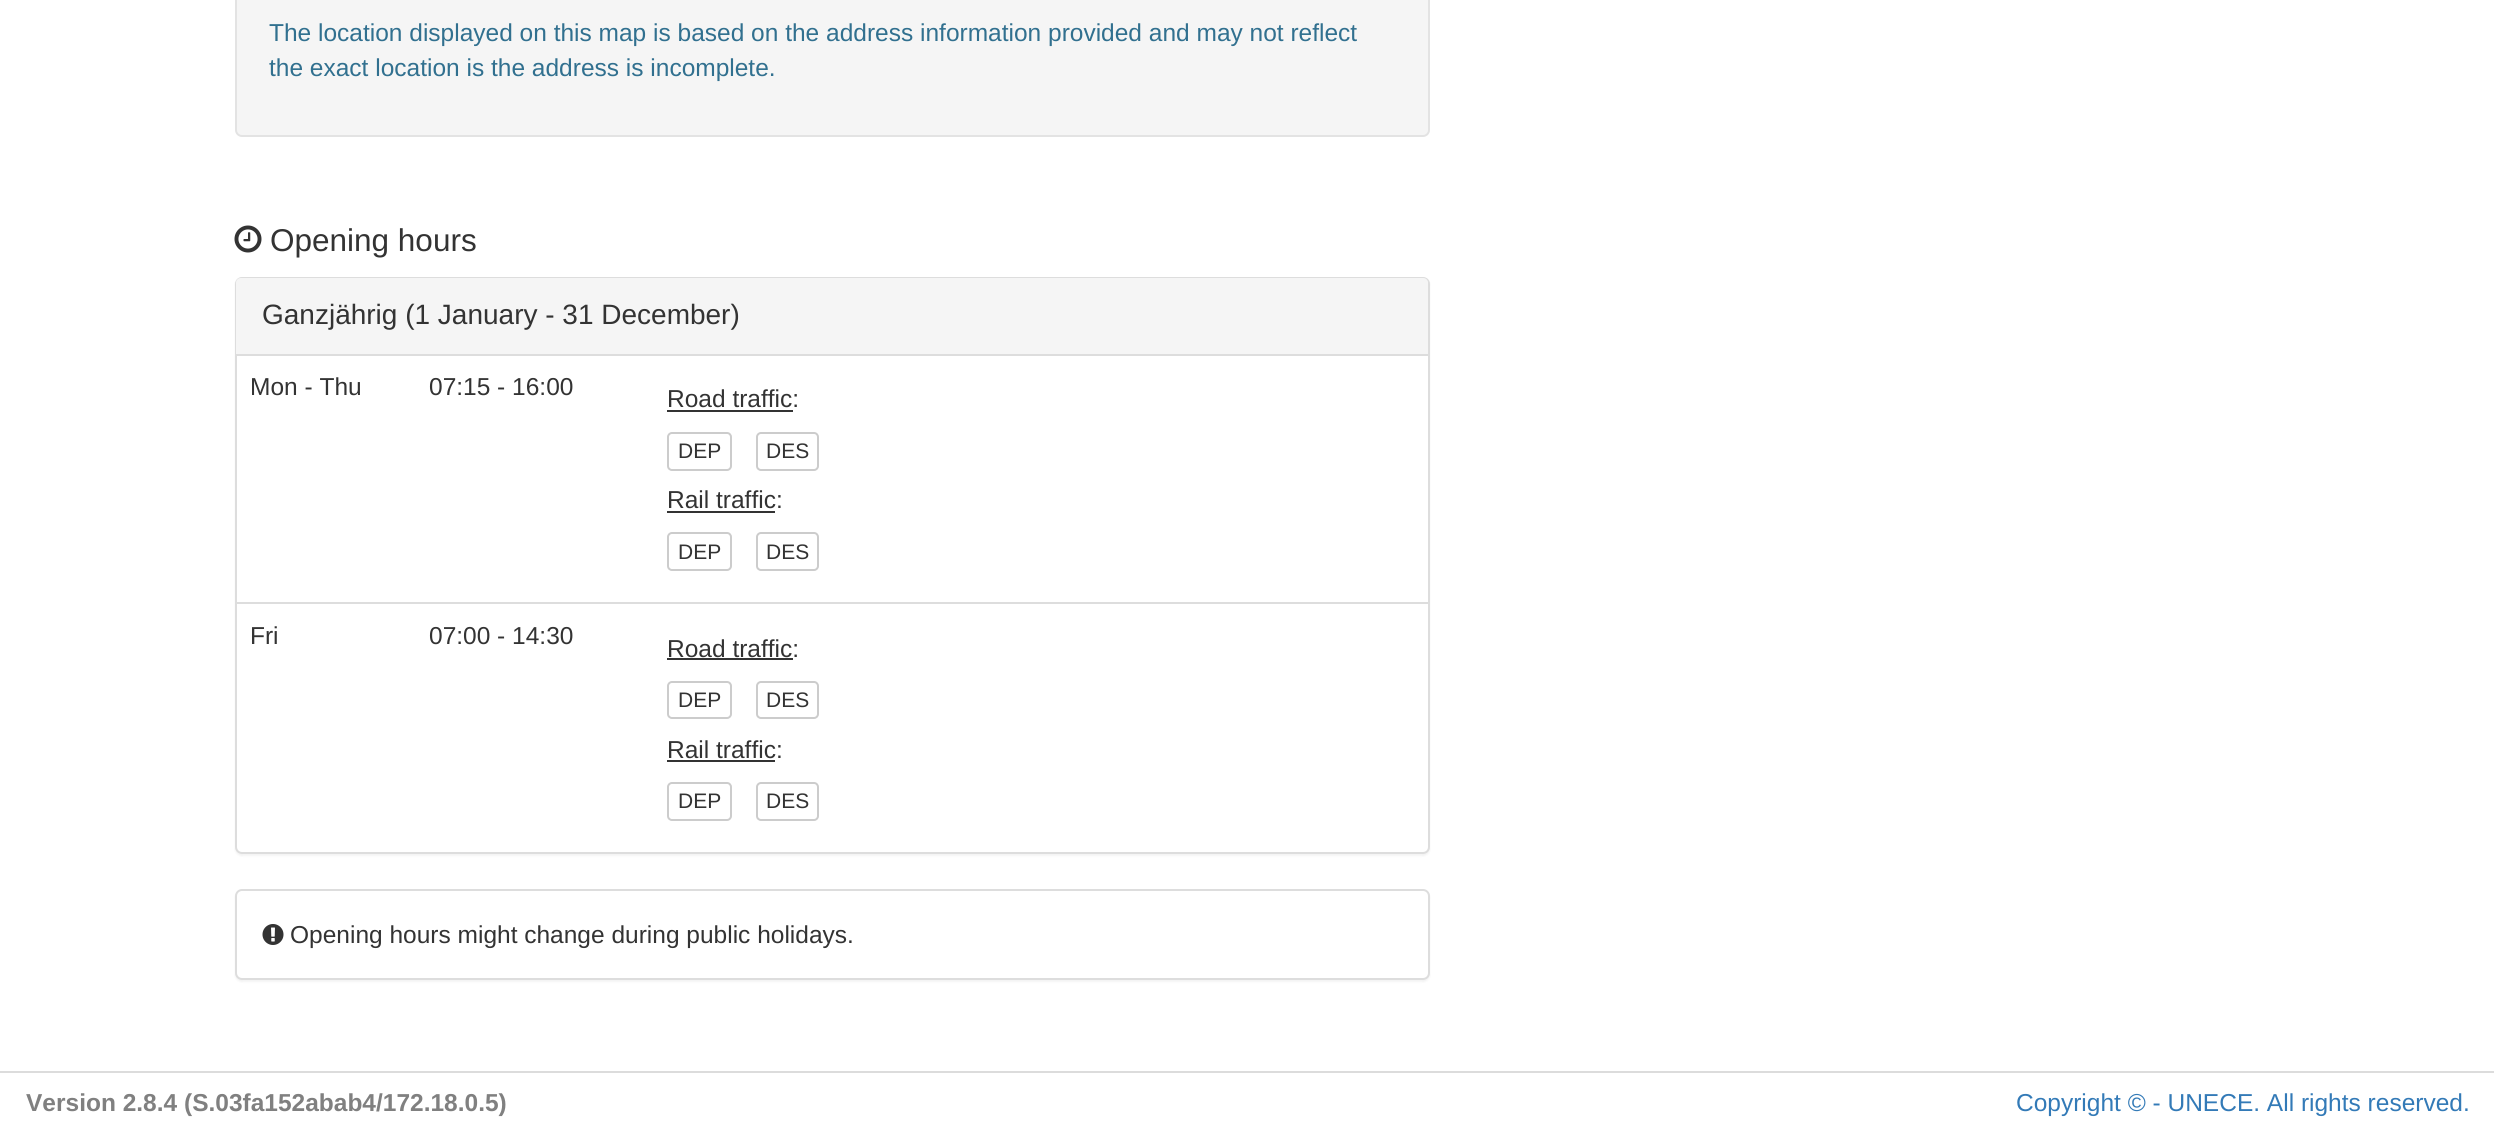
#include <cairo/cairo.h>
#include <math.h>
#include <stddef.h>

typedef struct { double x, y; const char *s; } line_t;
static cairo_t *cr;

static void rgb(unsigned color)
{
	cairo_set_source_rgb(cr, (color >> 16) / 255.0, (color >> 8 & 255) / 255.0, (color & 255) / 255.0);
}

static void rrect(double x, double y, double w, double h, double r)
{
	cairo_new_sub_path(cr);
	cairo_arc(cr, x + w - r, y + h - r, r, 0, M_PI / 2);
	cairo_arc(cr, x + r, y + h - r, r, M_PI / 2, M_PI);
	cairo_arc(cr, x + r, y + r, r, M_PI, 1.5 * M_PI);
	cairo_arc(cr, x + w - r, y + r, r, 1.5 * M_PI, 2 * M_PI);
	cairo_close_path(cr);
}

static void soft_shadow(double x, double y, double w, double h, double r, double blur, double alpha)
{
	cairo_push_group_with_content(cr, CAIRO_CONTENT_ALPHA);
	cairo_set_operator(cr, CAIRO_OPERATOR_SOURCE);
	for (int i = 15; i >= -15 && fmin(w, h) + blur * i / 3 > 0; i -= 2) {
		double e = blur * i / 6;
		cairo_set_source_rgba(cr, 0, 0, 0, alpha * erfc((i - 1) / 8.5) / 2);
		rrect(x - e, y - e, w + 2 * e, h + 2 * e, fmax(0, fmin(r + e + blur * .6, fmin(w, h) / 2 + e)));
		cairo_fill(cr);
	}
	cairo_pattern_t *soft = cairo_pop_group(cr);
	cairo_mask(cr, soft);
	cairo_pattern_destroy(soft);
}

static void image(const char *path, double x, double y, double w, double h)
{
	cairo_surface_t *image = cairo_image_surface_create_from_png(path);
	cairo_save(cr);
	cairo_set_source_surface(cr, image, x, y);
	cairo_rectangle(cr, x, y, w, h);
	cairo_fill(cr);
	cairo_restore(cr);
	cairo_surface_destroy(image);
}

int main(void) {
	cairo_surface_t *surface = cairo_image_surface_create(CAIRO_FORMAT_RGB24, 2494, 1137);
	cr = cairo_create(surface);
	cairo_font_options_t *options = cairo_font_options_create();
	cairo_font_options_set_hint_metrics(options, CAIRO_HINT_METRICS_OFF);
	cairo_font_options_set_hint_style(options, CAIRO_HINT_STYLE_NONE);
	cairo_set_font_options(cr, options);
	cairo_set_miter_limit(cr, 4);
	rgb(0xffffff);
	cairo_paint(cr);
	rgb(0xf5f5f5);
	rrect(236, -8, 1193, 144, 6);
	cairo_fill_preserve(cr);
	rgb(0xe3e3e3);
	cairo_stroke(cr);
	image("img/1.png", 234, 225, 28, 28);
	rgb(0x000000);
	soft_shadow(235, 278, 1195, 578, 7, 1, 0.05);
	rgb(0xffffff);
	rrect(236, 278, 1193, 575, 6);
	cairo_fill_preserve(cr);
	rgb(0xdddddd);
	cairo_stroke(cr);
	rgb(0xf5f5f5);
	cairo_new_path(cr);
	cairo_move_to(cr, 241, 278);
	cairo_line_to(cr, 1423, 278);
	cairo_curve_to(cr, 1426, 278, 1428, 280, 1428, 283);
	cairo_line_to(cr, 1428, 355);
	cairo_line_to(cr, 236, 355);
	cairo_line_to(cr, 236, 283);
	cairo_curve_to(cr, 236, 280, 238, 278, 241, 278);
	cairo_close_path(cr);
	cairo_fill(cr);
	rgb(0xdddddd);
	cairo_rectangle(cr, 236, 354, 1192, 2);
	cairo_fill(cr);
	rgb(0x333333);
	cairo_rectangle(cr, 667, 410, 126, 2);
	cairo_fill(cr);
	rrect(668, 433, 63, 37, 4);
	rgb(0xcccccc);
	cairo_stroke(cr);
	rrect(757, 433, 61, 37, 4);
	cairo_stroke(cr);
	rgb(0x333333);
	cairo_rectangle(cr, 667, 511, 108, 2);
	cairo_fill(cr);
	rrect(668, 533, 63, 37, 4);
	rgb(0xcccccc);
	cairo_stroke(cr);
	rrect(757, 533, 61, 37, 4);
	cairo_stroke(cr);
	rgb(0xdddddd);
	cairo_rectangle(cr, 235, 602, 1193, 2);
	cairo_fill(cr);
	rgb(0x333333);
	cairo_rectangle(cr, 667, 658, 126, 2);
	cairo_fill(cr);
	rrect(668, 682, 63, 36, 4);
	rgb(0xcccccc);
	cairo_stroke(cr);
	rrect(757, 682, 61, 36, 4);
	cairo_stroke(cr);
	rgb(0x333333);
	cairo_rectangle(cr, 667, 760, 108, 2);
	cairo_fill(cr);
	rrect(668, 783, 63, 37, 4);
	rgb(0xcccccc);
	cairo_stroke(cr);
	rrect(757, 783, 61, 37, 4);
	cairo_stroke(cr);
	rgb(0x000000);
	soft_shadow(235, 891, 1195, 91, 7, 1, 0.05);
	rgb(0xffffff);
	rrect(236, 890, 1193, 89, 6);
	cairo_fill_preserve(cr);
	rgb(0xdddddd);
	cairo_stroke(cr);
	image("img/2.png", 262, 924, 22, 21);
	rgb(0xdcdcdc);
	cairo_rectangle(cr, 0, 1071, 2494, 2);
	cairo_fill(cr);
	cairo_select_font_face(cr, "Liberation Sans", CAIRO_FONT_SLANT_NORMAL, CAIRO_FONT_WEIGHT_NORMAL);
	cairo_set_font_size(cr, 24.5);
	rgb(0x31708f);
	cairo_move_to(cr, 269, 41);
	cairo_show_text(cr, "The location displayed on this map is based on the address information provided and may not reflect");
	cairo_move_to(cr, 269, 76);
	cairo_show_text(cr, "the exact location is the address is incomplete.");
	cairo_set_font_size(cr, 31.5);
	rgb(0x333333);
	cairo_move_to(cr, 270, 251);
	cairo_show_text(cr, "Opening hours");
	cairo_set_font_size(cr, 28);
	cairo_move_to(cr, 262, 324);
	cairo_show_text(cr, "Ganzjährig (1 January - 31 December)");
	cairo_set_font_size(cr, 24.5);
	{
		static const line_t items[] = {
			{250, 395, "Mon - Thu"},
			{429, 395, "07:15 - 16:00"},
			{667, 407, "Road traffic:"},
		};
		for (size_t i = 0; i < sizeof items / sizeof *items; i++) {
			cairo_move_to(cr, items[i].x, items[i].y);
			cairo_show_text(cr, items[i].s);
		}
	}
	cairo_set_font_size(cr, 21);
	cairo_move_to(cr, 678, 458);
	cairo_show_text(cr, "DEP");
	cairo_move_to(cr, 766, 458);
	cairo_show_text(cr, "DES");
	cairo_set_font_size(cr, 24.5);
	cairo_move_to(cr, 667, 508);
	cairo_show_text(cr, "Rail traffic:");
	cairo_set_font_size(cr, 21);
	cairo_move_to(cr, 678, 559);
	cairo_show_text(cr, "DEP");
	cairo_move_to(cr, 766, 559);
	cairo_show_text(cr, "DES");
	cairo_set_font_size(cr, 24.5);
	{
		static const line_t items[] = {
			{250, 644, "Fri"},
			{429, 644, "07:00 - 14:30"},
			{667, 657, "Road traffic:"},
		};
		for (size_t i = 0; i < sizeof items / sizeof *items; i++) {
			cairo_move_to(cr, items[i].x, items[i].y);
			cairo_show_text(cr, items[i].s);
		}
	}
	cairo_set_font_size(cr, 21);
	cairo_move_to(cr, 678, 707);
	cairo_show_text(cr, "DEP");
	cairo_move_to(cr, 766, 707);
	cairo_show_text(cr, "DES");
	cairo_set_font_size(cr, 24.5);
	cairo_move_to(cr, 667, 758);
	cairo_show_text(cr, "Rail traffic:");
	cairo_set_font_size(cr, 21);
	cairo_move_to(cr, 678, 808);
	cairo_show_text(cr, "DEP");
	cairo_move_to(cr, 766, 808);
	cairo_show_text(cr, "DES");
	cairo_set_font_size(cr, 24.5);
	cairo_move_to(cr, 290, 943);
	cairo_show_text(cr, "Opening hours might change during public holidays.");
	cairo_select_font_face(cr, "Liberation Sans", CAIRO_FONT_SLANT_NORMAL, CAIRO_FONT_WEIGHT_BOLD);
	rgb(0x808080);
	cairo_move_to(cr, 26, 1111);
	cairo_show_text(cr, "Version 2.8.4 (S.03fa152abab4/172.18.0.5)");
	cairo_select_font_face(cr, "Liberation Sans", CAIRO_FONT_SLANT_NORMAL, CAIRO_FONT_WEIGHT_NORMAL);
	rgb(0x337ab7);
	cairo_move_to(cr, 2016, 1111);
	cairo_show_text(cr, "Copyright © - UNECE. All rights reserved.");
	cairo_surface_write_to_png(surface, "page.png");
	cairo_font_options_destroy(options);
	cairo_destroy(cr);
	cairo_surface_destroy(surface);
	return 0;
}
